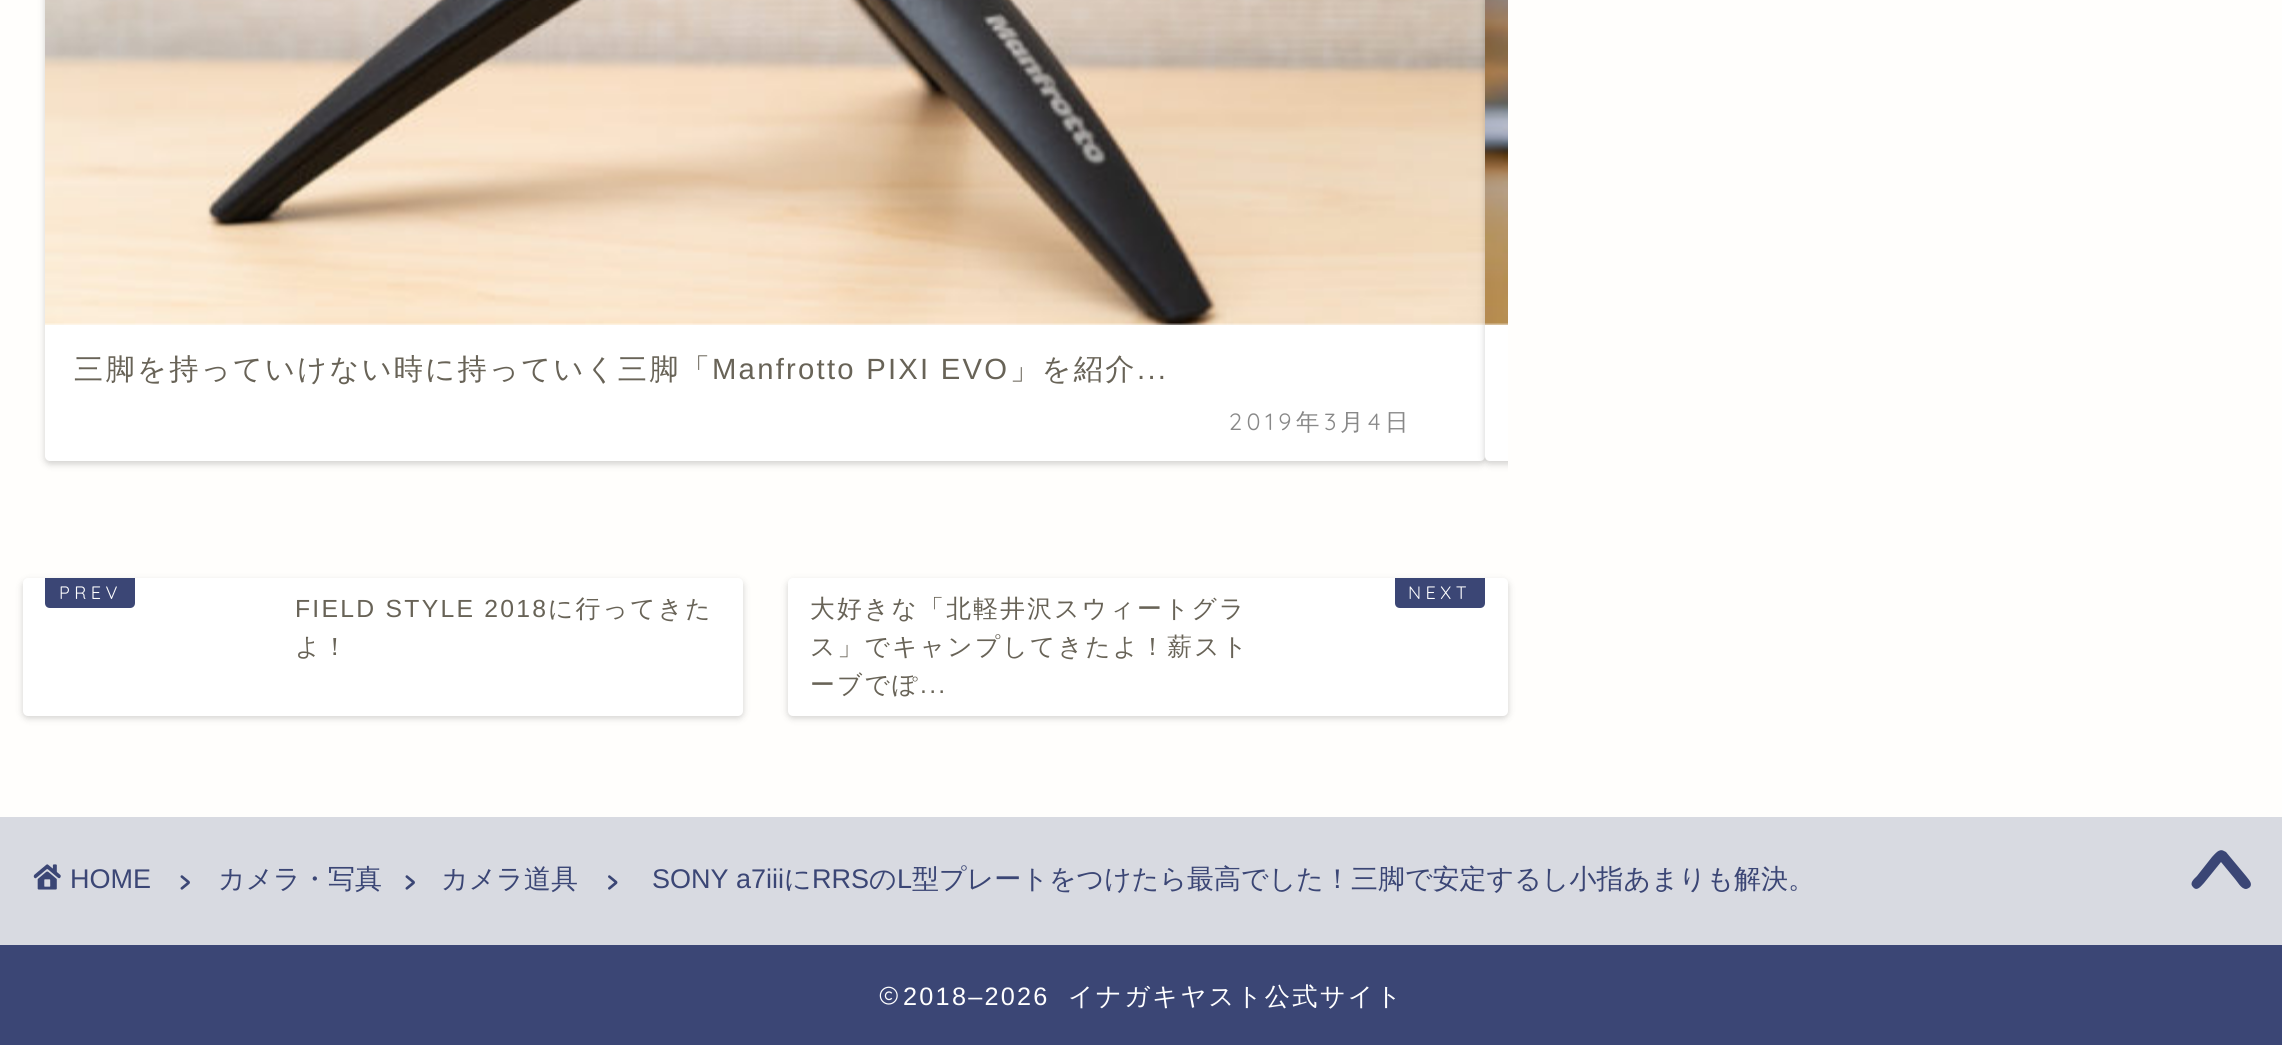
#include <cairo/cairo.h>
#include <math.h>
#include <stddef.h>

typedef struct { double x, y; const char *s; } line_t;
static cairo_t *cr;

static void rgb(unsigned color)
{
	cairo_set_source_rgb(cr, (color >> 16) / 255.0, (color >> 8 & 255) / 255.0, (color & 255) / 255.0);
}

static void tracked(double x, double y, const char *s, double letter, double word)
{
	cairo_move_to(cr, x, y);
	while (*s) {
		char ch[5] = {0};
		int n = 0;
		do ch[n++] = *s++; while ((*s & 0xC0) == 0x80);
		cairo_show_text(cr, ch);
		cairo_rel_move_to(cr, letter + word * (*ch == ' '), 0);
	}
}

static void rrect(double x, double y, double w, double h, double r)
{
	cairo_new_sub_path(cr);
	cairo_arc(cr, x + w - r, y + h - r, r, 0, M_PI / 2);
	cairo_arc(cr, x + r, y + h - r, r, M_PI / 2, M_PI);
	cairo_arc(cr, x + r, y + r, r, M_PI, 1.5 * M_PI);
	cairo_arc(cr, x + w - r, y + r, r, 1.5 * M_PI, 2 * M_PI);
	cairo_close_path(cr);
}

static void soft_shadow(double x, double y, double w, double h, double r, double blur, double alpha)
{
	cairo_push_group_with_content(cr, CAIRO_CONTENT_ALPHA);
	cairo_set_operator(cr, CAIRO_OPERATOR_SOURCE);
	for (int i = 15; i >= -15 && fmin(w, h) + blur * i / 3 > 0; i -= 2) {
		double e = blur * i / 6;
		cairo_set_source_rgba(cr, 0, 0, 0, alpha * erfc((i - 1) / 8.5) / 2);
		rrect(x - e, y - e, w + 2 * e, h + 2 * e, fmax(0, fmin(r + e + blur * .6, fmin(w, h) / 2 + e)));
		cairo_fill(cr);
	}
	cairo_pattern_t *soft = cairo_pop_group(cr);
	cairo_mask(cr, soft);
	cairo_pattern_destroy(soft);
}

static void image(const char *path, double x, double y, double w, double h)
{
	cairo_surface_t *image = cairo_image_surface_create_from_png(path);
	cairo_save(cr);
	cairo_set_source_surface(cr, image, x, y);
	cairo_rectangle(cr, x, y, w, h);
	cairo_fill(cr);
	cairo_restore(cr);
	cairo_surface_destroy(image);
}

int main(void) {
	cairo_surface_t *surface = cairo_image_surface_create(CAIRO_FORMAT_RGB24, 2282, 1045);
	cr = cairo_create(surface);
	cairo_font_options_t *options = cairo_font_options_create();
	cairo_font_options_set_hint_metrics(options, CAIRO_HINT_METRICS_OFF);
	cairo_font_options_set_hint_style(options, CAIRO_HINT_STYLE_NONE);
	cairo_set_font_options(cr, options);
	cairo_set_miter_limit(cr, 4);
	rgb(0xfffefc);
	cairo_paint(cr);
	rgb(0x000000);
	soft_shadow(45, -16, 1440, 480, 5, 3.5, 0.18);
	rgb(0xffffff);
	rrect(45, -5, 1440, 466, 5);
	cairo_fill(cr);
	image("img/1.png", 45, 0, 1440, 325);
	cairo_save(cr);
	cairo_rectangle(cr, 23, 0, 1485, 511);
	cairo_clip(cr);
	rgb(0x000000);
	soft_shadow(1485, -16, 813, 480, 5, 3.5, 0.18);
	cairo_restore(cr);
	cairo_new_path(cr);
	cairo_move_to(cr, 1490, -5);
	cairo_line_to(cr, 1508, -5);
	cairo_line_to(cr, 1508, 461);
	cairo_line_to(cr, 1490, 461);
	cairo_curve_to(cr, 1487, 461, 1485, 459, 1485, 456);
	cairo_line_to(cr, 1485, 0);
	cairo_curve_to(cr, 1485, -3, 1487, -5, 1490, -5);
	cairo_close_path(cr);
	cairo_fill(cr);
	image("img/2.png", 1485, 0, 23, 325);
	rgb(0x000000);
	soft_shadow(23, 581, 720, 137, 5, 3.5, 0.18);
	rgb(0xffffff);
	rrect(23, 578, 720, 138, 5);
	cairo_fill(cr);
	rgb(0x3b4675);
	cairo_new_path(cr);
	cairo_move_to(cr, 45, 578);
	cairo_line_to(cr, 135, 578);
	cairo_line_to(cr, 135, 603);
	cairo_curve_to(cr, 135, 606, 133, 608, 130, 608);
	cairo_line_to(cr, 50, 608);
	cairo_curve_to(cr, 47, 608, 45, 606, 45, 603);
	cairo_close_path(cr);
	cairo_fill(cr);
	rgb(0x000000);
	soft_shadow(788, 581, 720, 137, 5, 3.5, 0.18);
	rgb(0xffffff);
	rrect(788, 578, 720, 138, 5);
	cairo_fill(cr);
	rgb(0x3b4675);
	cairo_new_path(cr);
	cairo_move_to(cr, 1395, 578);
	cairo_line_to(cr, 1485, 578);
	cairo_line_to(cr, 1485, 603);
	cairo_curve_to(cr, 1485, 606, 1483, 608, 1480, 608);
	cairo_line_to(cr, 1400, 608);
	cairo_curve_to(cr, 1397, 608, 1395, 606, 1395, 603);
	cairo_close_path(cr);
	cairo_fill(cr);
	rgb(0xd8dae1);
	cairo_rectangle(cr, 0, 817, 2282, 128);
	cairo_fill(cr);
	image("img/3.png", 33, 864, 28, 26);
	image("img/4.png", 180, 875, 10, 15);
	image("img/4.png", 405, 875, 10, 15);
	image("img/5.png", 608, 875, 10, 15);
	rgb(0x3b4675);
	cairo_new_path(cr);
	cairo_move_to(cr, 2246, 889);
	cairo_curve_to(cr, 2241, 889, 2237, 881, 2235, 879);
	cairo_line_to(cr, 2221, 862);
	cairo_line_to(cr, 2204, 883);
	cairo_curve_to(cr, 2201, 886, 2197, 892, 2193, 887);
	cairo_curve_to(cr, 2189, 883, 2194, 879, 2197, 876);
	cairo_line_to(cr, 2212, 857);
	cairo_curve_to(cr, 2215, 854, 2219, 848, 2224, 851);
	cairo_line_to(cr, 2226, 852);
	cairo_line_to(cr, 2246, 876);
	cairo_curve_to(cr, 2248, 879, 2253, 883, 2250, 887);
	cairo_curve_to(cr, 2249, 888, 2247, 889, 2246, 889);
	cairo_close_path(cr);
	cairo_fill(cr);
	cairo_rectangle(cr, 0, 945, 2282, 100);
	cairo_fill(cr);
	image("img/6.png", 879, 986, 19, 19);
	cairo_select_font_face(cr, "WenQuanYi Zen Hei Medium", CAIRO_FONT_SLANT_NORMAL, CAIRO_FONT_WEIGHT_NORMAL);
	cairo_set_font_size(cr, 29.25);
	rgb(0x686357);
	tracked(74, 379, "三脚を持っていけない時に持っていく三脚「", 2.25, 0);
	cairo_select_font_face(cr, "Liberation Sans", CAIRO_FONT_SLANT_NORMAL, CAIRO_FONT_WEIGHT_NORMAL);
	tracked(712, 379, "Manfrotto PIXI EVO", 2.25, 0);
	cairo_select_font_face(cr, "WenQuanYi Zen Hei Medium", CAIRO_FONT_SLANT_NORMAL, CAIRO_FONT_WEIGHT_NORMAL);
	tracked(1010, 379, "」を紹介", 2.25, 0);
	cairo_select_font_face(cr, "Liberation Sans", CAIRO_FONT_SLANT_NORMAL, CAIRO_FONT_WEIGHT_NORMAL);
	tracked(1137, 379, "...", 2.25, 0);
	cairo_select_font_face(cr, "Quicksand Light", CAIRO_FONT_SLANT_NORMAL, CAIRO_FONT_WEIGHT_NORMAL);
	cairo_set_font_size(cr, 23.5);
	rgb(0x888888);
	tracked(1229, 430, "2019", 4.5, 0);
	cairo_select_font_face(cr, "WenQuanYi Zen Hei Medium", CAIRO_FONT_SLANT_NORMAL, CAIRO_FONT_WEIGHT_NORMAL);
	tracked(1296, 430, "年", 4.5, 0);
	cairo_select_font_face(cr, "Quicksand Light", CAIRO_FONT_SLANT_NORMAL, CAIRO_FONT_WEIGHT_NORMAL);
	tracked(1324, 430, "3", 4.5, 0);
	cairo_select_font_face(cr, "WenQuanYi Zen Hei Medium", CAIRO_FONT_SLANT_NORMAL, CAIRO_FONT_WEIGHT_NORMAL);
	tracked(1340, 430, "月", 4.5, 0);
	cairo_select_font_face(cr, "Quicksand Light", CAIRO_FONT_SLANT_NORMAL, CAIRO_FONT_WEIGHT_NORMAL);
	tracked(1368, 430, "4", 4.5, 0);
	cairo_select_font_face(cr, "WenQuanYi Zen Hei Medium", CAIRO_FONT_SLANT_NORMAL, CAIRO_FONT_WEIGHT_NORMAL);
	tracked(1385, 430, "日", 4.5, 0);
	cairo_select_font_face(cr, "Quicksand Light", CAIRO_FONT_SLANT_NORMAL, CAIRO_FONT_WEIGHT_NORMAL);
	cairo_set_font_size(cr, 18);
	rgb(0xffffff);
	tracked(59, 599, "PREV", 4.5, 0);
	cairo_select_font_face(cr, "Liberation Sans", CAIRO_FONT_SLANT_NORMAL, CAIRO_FONT_WEIGHT_NORMAL);
	cairo_set_font_size(cr, 24.75);
	rgb(0x686357);
	tracked(295, 617, "FIELD STYLE 2018", 2.25, 0);
	cairo_select_font_face(cr, "WenQuanYi Zen Hei Medium", CAIRO_FONT_SLANT_NORMAL, CAIRO_FONT_WEIGHT_NORMAL);
	tracked(548, 617, "に行ってきた", 2.25, 0);
	tracked(295, 655, "よ！", 2.25, 0);
	cairo_select_font_face(cr, "Quicksand Light", CAIRO_FONT_SLANT_NORMAL, CAIRO_FONT_WEIGHT_NORMAL);
	cairo_set_font_size(cr, 18);
	rgb(0xffffff);
	tracked(1408, 599, "NEXT", 4.5, 0);
	cairo_select_font_face(cr, "WenQuanYi Zen Hei Medium", CAIRO_FONT_SLANT_NORMAL, CAIRO_FONT_WEIGHT_NORMAL);
	cairo_set_font_size(cr, 24.75);
	rgb(0x686357);
	{
		static const line_t items[] = {
			{810, 617, "大好きな「北軽井沢スウィートグラ"},
			{810, 655, "ス」でキャンプしてきたよ！薪スト"},
			{810, 693, "ーブでぽ"},
		};
		for (size_t i = 0; i < sizeof items / sizeof *items; i++) {
			tracked(items[i].x, items[i].y, items[i].s, 2.25, 0);
		}
	}
	cairo_select_font_face(cr, "Liberation Sans", CAIRO_FONT_SLANT_NORMAL, CAIRO_FONT_WEIGHT_NORMAL);
	tracked(920, 693, "...", 2.25, 0);
	cairo_set_font_size(cr, 27);
	rgb(0x3b4675);
	cairo_move_to(cr, 70, 888);
	cairo_show_text(cr, "HOME");
	cairo_select_font_face(cr, "WenQuanYi Zen Hei Medium", CAIRO_FONT_SLANT_NORMAL, CAIRO_FONT_WEIGHT_NORMAL);
	cairo_move_to(cr, 218, 888);
	cairo_show_text(cr, "カメラ・写真");
	cairo_move_to(cr, 441, 888);
	cairo_show_text(cr, "カメラ道具");
	cairo_select_font_face(cr, "Liberation Sans", CAIRO_FONT_SLANT_NORMAL, CAIRO_FONT_WEIGHT_NORMAL);
	cairo_move_to(cr, 652, 888);
	cairo_show_text(cr, "SONY a7iii");
	cairo_select_font_face(cr, "WenQuanYi Zen Hei Medium", CAIRO_FONT_SLANT_NORMAL, CAIRO_FONT_WEIGHT_NORMAL);
	cairo_move_to(cr, 784, 888);
	cairo_show_text(cr, "に");
	cairo_select_font_face(cr, "Liberation Sans", CAIRO_FONT_SLANT_NORMAL, CAIRO_FONT_WEIGHT_NORMAL);
	cairo_move_to(cr, 812, 888);
	cairo_show_text(cr, "RRS");
	cairo_select_font_face(cr, "WenQuanYi Zen Hei Medium", CAIRO_FONT_SLANT_NORMAL, CAIRO_FONT_WEIGHT_NORMAL);
	cairo_move_to(cr, 869, 888);
	cairo_show_text(cr, "の");
	cairo_select_font_face(cr, "Liberation Sans", CAIRO_FONT_SLANT_NORMAL, CAIRO_FONT_WEIGHT_NORMAL);
	cairo_move_to(cr, 897, 888);
	cairo_show_text(cr, "L");
	cairo_select_font_face(cr, "WenQuanYi Zen Hei Medium", CAIRO_FONT_SLANT_NORMAL, CAIRO_FONT_WEIGHT_NORMAL);
	cairo_move_to(cr, 912, 888);
	cairo_show_text(cr, "型プレートをつけたら最高でした！三脚で安定するし小指あまりも解決。");
	cairo_select_font_face(cr, "Liberation Sans", CAIRO_FONT_SLANT_NORMAL, CAIRO_FONT_WEIGHT_NORMAL);
	cairo_set_font_size(cr, 25.25);
	rgb(0xffffff);
	tracked(903, 1005, "2018–2026", 2.25, 0);
	cairo_select_font_face(cr, "WenQuanYi Zen Hei Medium", CAIRO_FONT_SLANT_NORMAL, CAIRO_FONT_WEIGHT_NORMAL);
	tracked(1068, 1005, "イナガキヤスト公式サイト", 2.25, 0);
	cairo_surface_write_to_png(surface, "page.png");
	cairo_font_options_destroy(options);
	cairo_destroy(cr);
	cairo_surface_destroy(surface);
	return 0;
}
